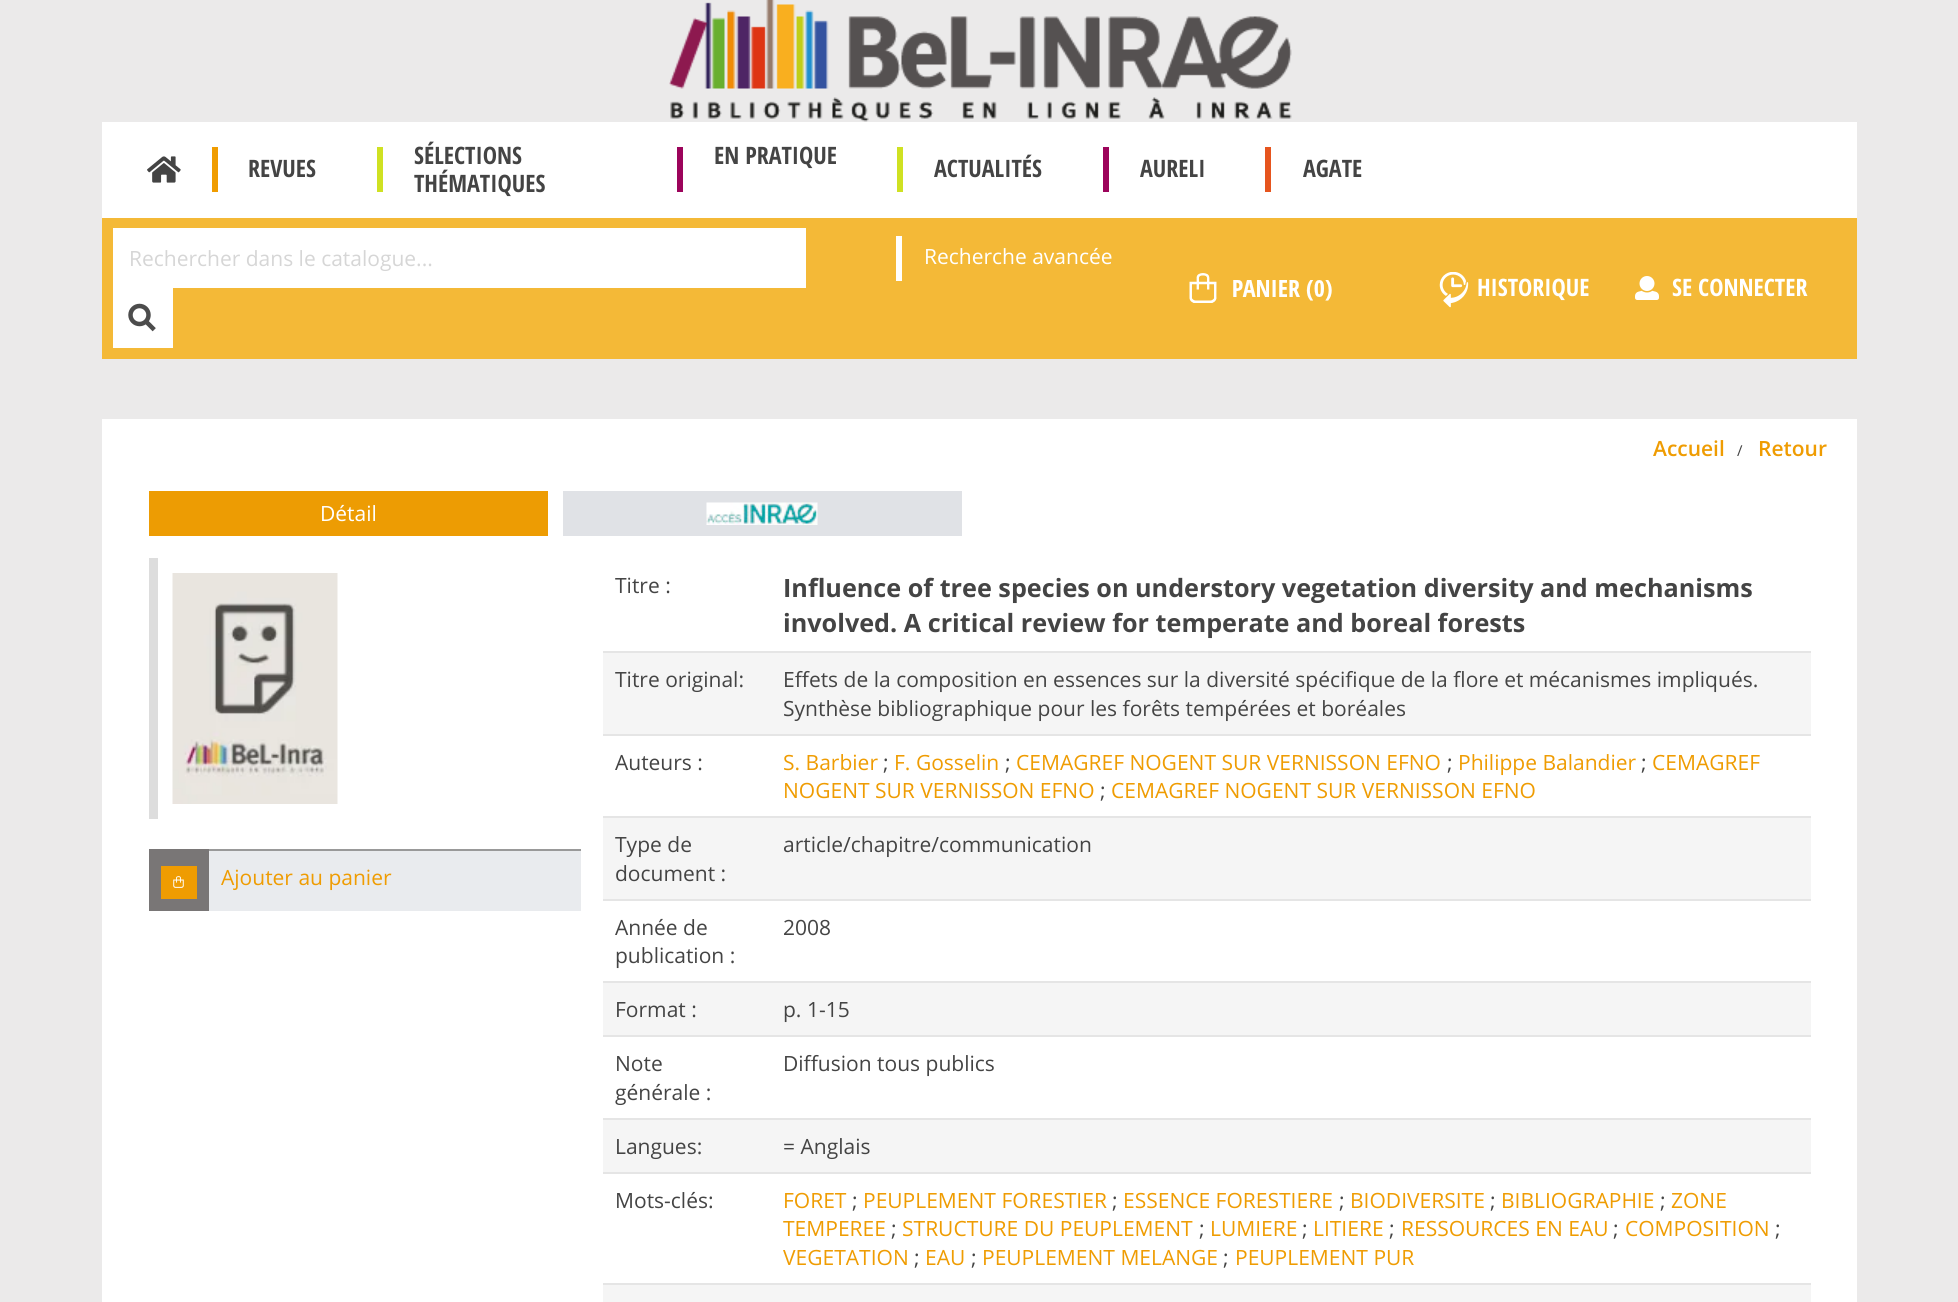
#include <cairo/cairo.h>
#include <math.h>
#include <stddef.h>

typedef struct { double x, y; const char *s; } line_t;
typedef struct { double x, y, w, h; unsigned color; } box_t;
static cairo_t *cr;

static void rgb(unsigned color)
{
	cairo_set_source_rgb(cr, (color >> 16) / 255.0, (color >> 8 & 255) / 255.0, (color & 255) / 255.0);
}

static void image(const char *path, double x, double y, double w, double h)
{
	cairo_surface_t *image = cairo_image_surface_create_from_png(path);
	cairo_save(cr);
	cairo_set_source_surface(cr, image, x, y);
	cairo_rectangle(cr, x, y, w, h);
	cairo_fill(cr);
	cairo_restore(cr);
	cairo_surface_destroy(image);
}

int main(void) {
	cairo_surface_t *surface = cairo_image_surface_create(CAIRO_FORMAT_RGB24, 1958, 1302);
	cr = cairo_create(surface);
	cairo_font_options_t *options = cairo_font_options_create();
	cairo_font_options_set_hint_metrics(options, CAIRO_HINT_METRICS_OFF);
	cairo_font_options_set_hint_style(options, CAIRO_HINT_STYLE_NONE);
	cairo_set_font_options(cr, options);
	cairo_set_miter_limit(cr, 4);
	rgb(0xebeaea);
	cairo_paint(cr);
	image("img/1.png", 669, 0, 623, 122);
	rgb(0xffffff);
	cairo_rectangle(cr, 102, 122, 1755, 96);
	cairo_fill(cr);
	image("img/2.png", 147, 156, 34, 27);
	{
		static const box_t items[] = {
			{212, 147, 6, 45, 0xf09c00},
			{377, 147, 6, 45, 0xcfe122},
			{677, 147, 6, 45, 0x9c045b},
			{897, 147, 6, 45, 0xcfe122},
			{1103, 147, 6, 45, 0x9c045b},
			{1265, 147, 6, 45, 0xe6551e},
			{102, 218, 1755, 141, 0xf4b937},
			{113, 228, 693, 60, 0xffffff},
			{113, 288, 60, 60, 0xffffff},
		};
		for (size_t i = 0; i < sizeof items / sizeof *items; i++) {
			rgb(items[i].color);
			cairo_rectangle(cr, items[i].x, items[i].y, items[i].w, items[i].h);
			cairo_fill(cr);
		}
	}
	image("img/3.png", 128, 303, 28, 29);
	cairo_rectangle(cr, 896, 236, 6, 45);
	cairo_fill(cr);
	image("img/4.png", 1189, 273, 143, 30);
	image("img/5.png", 1439, 272, 30, 36);
	image("img/6.png", 1635, 276, 24, 24);
	{
		static const box_t items[] = {
			{102, 419, 1755, 883, 0xffffff},
			{149, 491, 399, 45, 0xed9c03},
			{563, 491, 399, 45, 0xe0e2e6},
		};
		for (size_t i = 0; i < sizeof items / sizeof *items; i++) {
			rgb(items[i].color);
			cairo_rectangle(cr, items[i].x, items[i].y, items[i].w, items[i].h);
			cairo_fill(cr);
		}
	}
	image("img/7.png", 706, 502, 112, 23);
	rgb(0xdddddd);
	cairo_rectangle(cr, 149, 558, 9, 261);
	cairo_fill(cr);
	image("img/8.png", 172, 573, 166, 231);
	{
		static const box_t items[] = {
			{209, 849, 372, 2, 0x999999},
			{149, 849, 60, 62, 0x797676},
			{161, 866, 36, 33, 0xef9c02},
		};
		for (size_t i = 0; i < sizeof items / sizeof *items; i++) {
			rgb(items[i].color);
			cairo_rectangle(cr, items[i].x, items[i].y, items[i].w, items[i].h);
			cairo_fill(cr);
		}
	}
	image("img/9.png", 173, 876, 11, 12);
	{
		static const box_t items[] = {
			{209, 851, 372, 60, 0xe9ebee},
			{603, 651, 1208, 2, 0xe5e5e5},
			{603, 653, 1208, 81, 0xf5f5f5},
			{603, 734, 1208, 2, 0xe5e5e5},
			{603, 816, 1208, 2, 0xe5e5e5},
			{603, 818, 1208, 81, 0xf5f5f5},
			{603, 899, 1208, 2, 0xe5e5e5},
			{603, 981, 1208, 2, 0xe5e5e5},
			{603, 983, 1208, 52, 0xf5f5f5},
			{603, 1035, 1208, 2, 0xe5e5e5},
			{603, 1118, 1208, 2, 0xe5e5e5},
			{603, 1120, 1208, 52, 0xf5f5f5},
			{603, 1172, 1208, 2, 0xe5e5e5},
			{603, 1283, 1208, 2, 0xe5e5e5},
			{603, 1285, 1208, 17, 0xf5f5f5},
		};
		for (size_t i = 0; i < sizeof items / sizeof *items; i++) {
			rgb(items[i].color);
			cairo_rectangle(cr, items[i].x, items[i].y, items[i].w, items[i].h);
			cairo_fill(cr);
		}
	}
	cairo_select_font_face(cr, "Open Sans Condensed", CAIRO_FONT_SLANT_NORMAL, CAIRO_FONT_WEIGHT_BOLD);
	cairo_set_font_size(cr, 24);
	rgb(0x444444);
	{
		static const line_t items[] = {
			{248, 177, "REVUES"},
			{414, 164, "SÉLECTIONS"},
			{414, 192, "THÉMATIQUES"},
			{714, 164, "EN PRATIQUE"},
			{934, 177, "ACTUALITÉS"},
			{1140, 177, "AURELI"},
			{1303, 177, "AGATE"},
		};
		for (size_t i = 0; i < sizeof items / sizeof *items; i++) {
			cairo_move_to(cr, items[i].x, items[i].y);
			cairo_show_text(cr, items[i].s);
		}
	}
	cairo_select_font_face(cr, "Open Sans", CAIRO_FONT_SLANT_NORMAL, CAIRO_FONT_WEIGHT_NORMAL);
	cairo_set_font_size(cr, 21);
	rgb(0xd6d6d6);
	cairo_move_to(cr, 129, 266);
	cairo_show_text(cr, "Rechercher dans le catalogue...");
	rgb(0xffffff);
	cairo_move_to(cr, 924, 264);
	cairo_show_text(cr, "Recherche avancée");
	cairo_select_font_face(cr, "Open Sans Condensed", CAIRO_FONT_SLANT_NORMAL, CAIRO_FONT_WEIGHT_BOLD);
	cairo_set_font_size(cr, 24);
	cairo_move_to(cr, 1477, 296);
	cairo_show_text(cr, "HISTORIQUE");
	cairo_move_to(cr, 1672, 296);
	cairo_show_text(cr, "SE CONNECTER");
	cairo_select_font_face(cr, "Open Sans SemiBold", CAIRO_FONT_SLANT_NORMAL, CAIRO_FONT_WEIGHT_NORMAL);
	cairo_set_font_size(cr, 21);
	rgb(0xef9c02);
	cairo_move_to(cr, 1653, 456);
	cairo_show_text(cr, "Accueil");
	cairo_select_font_face(cr, "Open Sans", CAIRO_FONT_SLANT_NORMAL, CAIRO_FONT_WEIGHT_NORMAL);
	cairo_set_font_size(cr, 15);
	rgb(0x444444);
	cairo_move_to(cr, 1737, 456);
	cairo_show_text(cr, "/");
	cairo_select_font_face(cr, "Open Sans SemiBold", CAIRO_FONT_SLANT_NORMAL, CAIRO_FONT_WEIGHT_NORMAL);
	cairo_set_font_size(cr, 21);
	rgb(0xef9c02);
	cairo_move_to(cr, 1758, 456);
	cairo_show_text(cr, "Retour");
	cairo_select_font_face(cr, "Open Sans", CAIRO_FONT_SLANT_NORMAL, CAIRO_FONT_WEIGHT_NORMAL);
	rgb(0xffffff);
	cairo_move_to(cr, 320, 521);
	cairo_show_text(cr, "Détail");
	rgb(0xef9c02);
	cairo_move_to(cr, 221, 885);
	cairo_show_text(cr, "Ajouter au panier");
	rgb(0x444444);
	cairo_move_to(cr, 615, 593);
	cairo_show_text(cr, "Titre :");
	cairo_select_font_face(cr, "Open Sans", CAIRO_FONT_SLANT_NORMAL, CAIRO_FONT_WEIGHT_BOLD);
	cairo_set_font_size(cr, 25.2);
	cairo_move_to(cr, 783, 597);
	cairo_show_text(cr, "Influence of tree species on understory vegetation diversity and mechanisms");
	cairo_move_to(cr, 783, 632);
	cairo_show_text(cr, "involved. A critical review for temperate and boreal forests");
	cairo_select_font_face(cr, "Open Sans", CAIRO_FONT_SLANT_NORMAL, CAIRO_FONT_WEIGHT_NORMAL);
	cairo_set_font_size(cr, 21);
	{
		static const line_t items[] = {
			{615, 687, "Titre original:"},
			{783, 687, "Effets de la composition en essences sur la diversité spécifique de la flore et mécanismes impliqués."},
			{783, 716, "Synthèse bibliographique pour les forêts tempérées et boréales"},
			{615, 770, "Auteurs :"},
		};
		for (size_t i = 0; i < sizeof items / sizeof *items; i++) {
			cairo_move_to(cr, items[i].x, items[i].y);
			cairo_show_text(cr, items[i].s);
		}
	}
	rgb(0xef9c02);
	cairo_move_to(cr, 783, 770);
	cairo_show_text(cr, "S. Barbier");
	rgb(0x444444);
	cairo_move_to(cr, 883, 770);
	cairo_show_text(cr, ";");
	rgb(0xef9c02);
	cairo_move_to(cr, 894, 770);
	cairo_show_text(cr, "F. Gosselin");
	rgb(0x444444);
	cairo_move_to(cr, 1005, 770);
	cairo_show_text(cr, ";");
	rgb(0xef9c02);
	cairo_move_to(cr, 1016, 770);
	cairo_show_text(cr, "CEMAGREF NOGENT SUR VERNISSON EFNO");
	rgb(0x444444);
	cairo_move_to(cr, 1447, 770);
	cairo_show_text(cr, ";");
	rgb(0xef9c02);
	cairo_move_to(cr, 1458, 770);
	cairo_show_text(cr, "Philippe Balandier");
	rgb(0x444444);
	cairo_move_to(cr, 1641, 770);
	cairo_show_text(cr, ";");
	rgb(0xef9c02);
	cairo_move_to(cr, 1652, 770);
	cairo_show_text(cr, "CEMAGREF");
	cairo_move_to(cr, 783, 798);
	cairo_show_text(cr, "NOGENT SUR VERNISSON EFNO");
	rgb(0x444444);
	cairo_move_to(cr, 1100, 798);
	cairo_show_text(cr, ";");
	rgb(0xef9c02);
	cairo_move_to(cr, 1111, 798);
	cairo_show_text(cr, "CEMAGREF NOGENT SUR VERNISSON EFNO");
	rgb(0x444444);
	{
		static const line_t items[] = {
			{615, 852, "Type de"},
			{615, 881, "document :"},
			{783, 852, "article/chapitre/communication"},
			{615, 935, "Année de"},
			{615, 963, "publication :"},
			{783, 935, "2008"},
			{615, 1017, "Format :"},
			{783, 1017, "p. 1-15"},
			{615, 1071, "Note"},
			{615, 1100, "générale :"},
			{783, 1071, "Diffusion tous publics"},
			{615, 1154, "Langues:"},
			{783, 1154, "= Anglais"},
			{615, 1208, "Mots-clés:"},
		};
		for (size_t i = 0; i < sizeof items / sizeof *items; i++) {
			cairo_move_to(cr, items[i].x, items[i].y);
			cairo_show_text(cr, items[i].s);
		}
	}
	rgb(0xef9c02);
	cairo_move_to(cr, 783, 1208);
	cairo_show_text(cr, "FORET");
	rgb(0x444444);
	cairo_move_to(cr, 852, 1208);
	cairo_show_text(cr, ";");
	rgb(0xef9c02);
	cairo_move_to(cr, 863, 1208);
	cairo_show_text(cr, "PEUPLEMENT FORESTIER");
	rgb(0x444444);
	cairo_move_to(cr, 1112, 1208);
	cairo_show_text(cr, ";");
	rgb(0xef9c02);
	cairo_move_to(cr, 1123, 1208);
	cairo_show_text(cr, "ESSENCE FORESTIERE");
	rgb(0x444444);
	cairo_move_to(cr, 1339, 1208);
	cairo_show_text(cr, ";");
	rgb(0xef9c02);
	cairo_move_to(cr, 1350, 1208);
	cairo_show_text(cr, "BIODIVERSITE");
	rgb(0x444444);
	cairo_move_to(cr, 1490, 1208);
	cairo_show_text(cr, ";");
	rgb(0xef9c02);
	cairo_move_to(cr, 1501, 1208);
	cairo_show_text(cr, "BIBLIOGRAPHIE");
	rgb(0x444444);
	cairo_move_to(cr, 1660, 1208);
	cairo_show_text(cr, ";");
	rgb(0xef9c02);
	cairo_move_to(cr, 1671, 1208);
	cairo_show_text(cr, "ZONE");
	cairo_move_to(cr, 783, 1236);
	cairo_show_text(cr, "TEMPEREE");
	rgb(0x444444);
	cairo_move_to(cr, 891, 1236);
	cairo_show_text(cr, ";");
	rgb(0xef9c02);
	cairo_move_to(cr, 902, 1236);
	cairo_show_text(cr, "STRUCTURE DU PEUPLEMENT");
	rgb(0x444444);
	cairo_move_to(cr, 1199, 1236);
	cairo_show_text(cr, ";");
	rgb(0xef9c02);
	cairo_move_to(cr, 1210, 1236);
	cairo_show_text(cr, "LUMIERE");
	rgb(0x444444);
	cairo_move_to(cr, 1302, 1236);
	cairo_show_text(cr, ";");
	rgb(0xef9c02);
	cairo_move_to(cr, 1313, 1236);
	cairo_show_text(cr, "LITIERE");
	rgb(0x444444);
	cairo_move_to(cr, 1389, 1236);
	cairo_show_text(cr, ";");
	rgb(0xef9c02);
	cairo_move_to(cr, 1401, 1236);
	cairo_show_text(cr, "RESSOURCES EN EAU");
	rgb(0x444444);
	cairo_move_to(cr, 1613, 1236);
	cairo_show_text(cr, ";");
	rgb(0xef9c02);
	cairo_move_to(cr, 1625, 1236);
	cairo_show_text(cr, "COMPOSITION");
	rgb(0x444444);
	cairo_move_to(cr, 1775, 1236);
	cairo_show_text(cr, ";");
	rgb(0xef9c02);
	cairo_move_to(cr, 783, 1265);
	cairo_show_text(cr, "VEGETATION");
	rgb(0x444444);
	cairo_move_to(cr, 914, 1265);
	cairo_show_text(cr, ";");
	rgb(0xef9c02);
	cairo_move_to(cr, 925, 1265);
	cairo_show_text(cr, "EAU");
	rgb(0x444444);
	cairo_move_to(cr, 971, 1265);
	cairo_show_text(cr, ";");
	rgb(0xef9c02);
	cairo_move_to(cr, 982, 1265);
	cairo_show_text(cr, "PEUPLEMENT MELANGE");
	rgb(0x444444);
	cairo_move_to(cr, 1223, 1265);
	cairo_show_text(cr, ";");
	rgb(0xef9c02);
	cairo_move_to(cr, 1235, 1265);
	cairo_show_text(cr, "PEUPLEMENT PUR");
	cairo_surface_write_to_png(surface, "page.png");
	cairo_font_options_destroy(options);
	cairo_destroy(cr);
	cairo_surface_destroy(surface);
	return 0;
}
